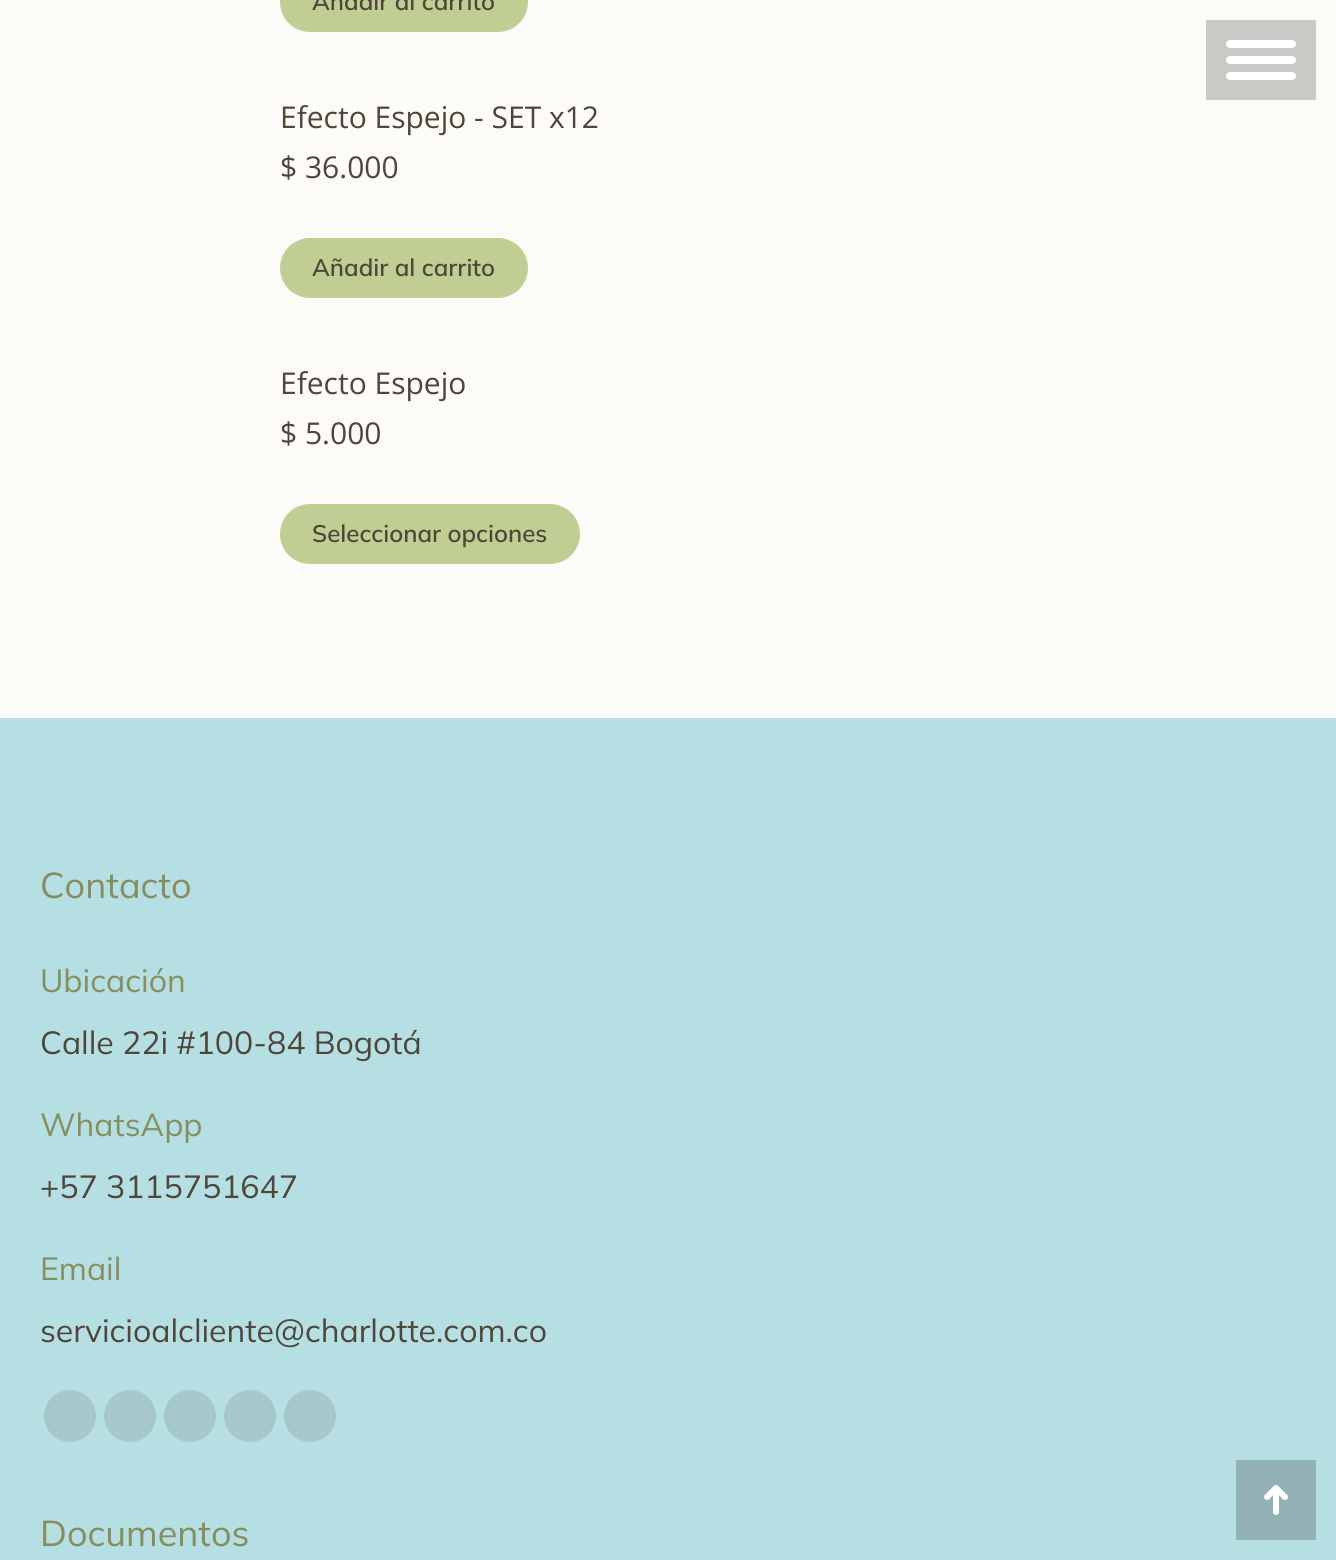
#include <cairo/cairo.h>
#include <math.h>
#include <stddef.h>

static cairo_t *cr;

static void rgb(unsigned color)
{
	cairo_set_source_rgb(cr, (color >> 16) / 255.0, (color >> 8 & 255) / 255.0, (color & 255) / 255.0);
}

static void rrect(double x, double y, double w, double h, double r)
{
	cairo_new_sub_path(cr);
	cairo_arc(cr, x + w - r, y + h - r, r, 0, M_PI / 2);
	cairo_arc(cr, x + r, y + h - r, r, M_PI / 2, M_PI);
	cairo_arc(cr, x + r, y + r, r, M_PI, 1.5 * M_PI);
	cairo_arc(cr, x + w - r, y + r, r, 1.5 * M_PI, 2 * M_PI);
	cairo_close_path(cr);
}

static void image(const char *path, double x, double y, double w, double h)
{
	cairo_surface_t *image = cairo_image_surface_create_from_png(path);
	cairo_save(cr);
	cairo_set_source_surface(cr, image, x, y);
	cairo_rectangle(cr, x, y, w, h);
	cairo_fill(cr);
	cairo_restore(cr);
	cairo_surface_destroy(image);
}

int main(void) {
	cairo_surface_t *surface = cairo_image_surface_create(CAIRO_FORMAT_RGB24, 1336, 1560);
	cr = cairo_create(surface);
	cairo_font_options_t *options = cairo_font_options_create();
	cairo_font_options_set_hint_metrics(options, CAIRO_HINT_METRICS_OFF);
	cairo_font_options_set_hint_style(options, CAIRO_HINT_STYLE_NONE);
	cairo_set_font_options(cr, options);
	cairo_set_miter_limit(cr, 4);
	rgb(0xfcfbf8);
	cairo_paint(cr);
	rgb(0xc1ce93);
	rrect(280, -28, 248, 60, 30);
	cairo_fill(cr);
	rrect(280, 238, 248, 60, 30);
	cairo_fill(cr);
	rrect(280, 504, 300, 60, 30);
	cairo_fill(cr);
	rgb(0xcac9c6);
	cairo_rectangle(cr, 1206, 20, 110, 80);
	cairo_fill(cr);
	rgb(0xffffff);
	rrect(1226, 40, 70, 8, 4);
	cairo_fill(cr);
	rrect(1226, 56, 70, 8, 4);
	cairo_fill(cr);
	rrect(1226, 72, 70, 8, 4);
	cairo_fill(cr);
	rgb(0xb6dfe4);
	cairo_rectangle(cr, 0, 718, 1336, 842);
	cairo_fill(cr);
	rgb(0xa6c8ca);
	cairo_arc(cr, 70, 1416, 26, 0, 2 * M_PI);
	cairo_fill(cr);
	cairo_arc(cr, 130, 1416, 26, 0, 2 * M_PI);
	cairo_fill(cr);
	cairo_arc(cr, 190, 1416, 26, 0, 2 * M_PI);
	cairo_fill(cr);
	cairo_arc(cr, 250, 1416, 26, 0, 2 * M_PI);
	cairo_fill(cr);
	cairo_arc(cr, 310, 1416, 26, 0, 2 * M_PI);
	cairo_fill(cr);
	rgb(0x92b2b6);
	cairo_rectangle(cr, 1236, 1460, 80, 80);
	cairo_fill(cr);
	image("img/1.png", 1264, 1485, 24, 30);
	cairo_select_font_face(cr, "Mulish SemiBold", CAIRO_FONT_SLANT_NORMAL, CAIRO_FONT_WEIGHT_NORMAL);
	cairo_set_font_size(cr, 24);
	rgb(0x4d4639);
	cairo_move_to(cr, 312, 10);
	cairo_show_text(cr, "Añadir al carrito");
	cairo_select_font_face(cr, "Open Sans", CAIRO_FONT_SLANT_NORMAL, CAIRO_FONT_WEIGHT_NORMAL);
	cairo_set_font_size(cr, 30);
	cairo_move_to(cr, 280, 128);
	cairo_show_text(cr, "Efecto Espejo - SET x12");
	cairo_move_to(cr, 280, 178);
	cairo_show_text(cr, "$ 36.000");
	cairo_select_font_face(cr, "Mulish SemiBold", CAIRO_FONT_SLANT_NORMAL, CAIRO_FONT_WEIGHT_NORMAL);
	cairo_set_font_size(cr, 24);
	cairo_move_to(cr, 312, 276);
	cairo_show_text(cr, "Añadir al carrito");
	cairo_select_font_face(cr, "Open Sans", CAIRO_FONT_SLANT_NORMAL, CAIRO_FONT_WEIGHT_NORMAL);
	cairo_set_font_size(cr, 30);
	cairo_move_to(cr, 280, 394);
	cairo_show_text(cr, "Efecto Espejo");
	cairo_move_to(cr, 280, 444);
	cairo_show_text(cr, "$ 5.000");
	cairo_select_font_face(cr, "Mulish SemiBold", CAIRO_FONT_SLANT_NORMAL, CAIRO_FONT_WEIGHT_NORMAL);
	cairo_set_font_size(cr, 24);
	cairo_move_to(cr, 312, 542);
	cairo_show_text(cr, "Seleccionar opciones");
	cairo_select_font_face(cr, "Mulish", CAIRO_FONT_SLANT_NORMAL, CAIRO_FONT_WEIGHT_NORMAL);
	cairo_set_font_size(cr, 36);
	rgb(0x858e5f);
	cairo_move_to(cr, 40, 898);
	cairo_show_text(cr, "Contacto");
	cairo_set_font_size(cr, 32);
	cairo_move_to(cr, 40, 992);
	cairo_show_text(cr, "Ubicación");
	rgb(0x4d4639);
	cairo_move_to(cr, 40, 1054);
	cairo_show_text(cr, "Calle 22i #100-84 Bogotá");
	rgb(0x858e5f);
	cairo_move_to(cr, 40, 1136);
	cairo_show_text(cr, "WhatsApp");
	rgb(0x4d4639);
	cairo_move_to(cr, 40, 1198);
	cairo_show_text(cr, "+57 3115751647");
	rgb(0x858e5f);
	cairo_move_to(cr, 40, 1280);
	cairo_show_text(cr, "Email");
	rgb(0x4d4639);
	cairo_move_to(cr, 40, 1342);
	cairo_show_text(cr, "servicioalcliente@charlotte.com.co");
	cairo_set_font_size(cr, 36);
	rgb(0x858e5f);
	cairo_move_to(cr, 40, 1546);
	cairo_show_text(cr, "Documentos");
	cairo_surface_write_to_png(surface, "page.png");
	cairo_font_options_destroy(options);
	cairo_destroy(cr);
	cairo_surface_destroy(surface);
	return 0;
}
